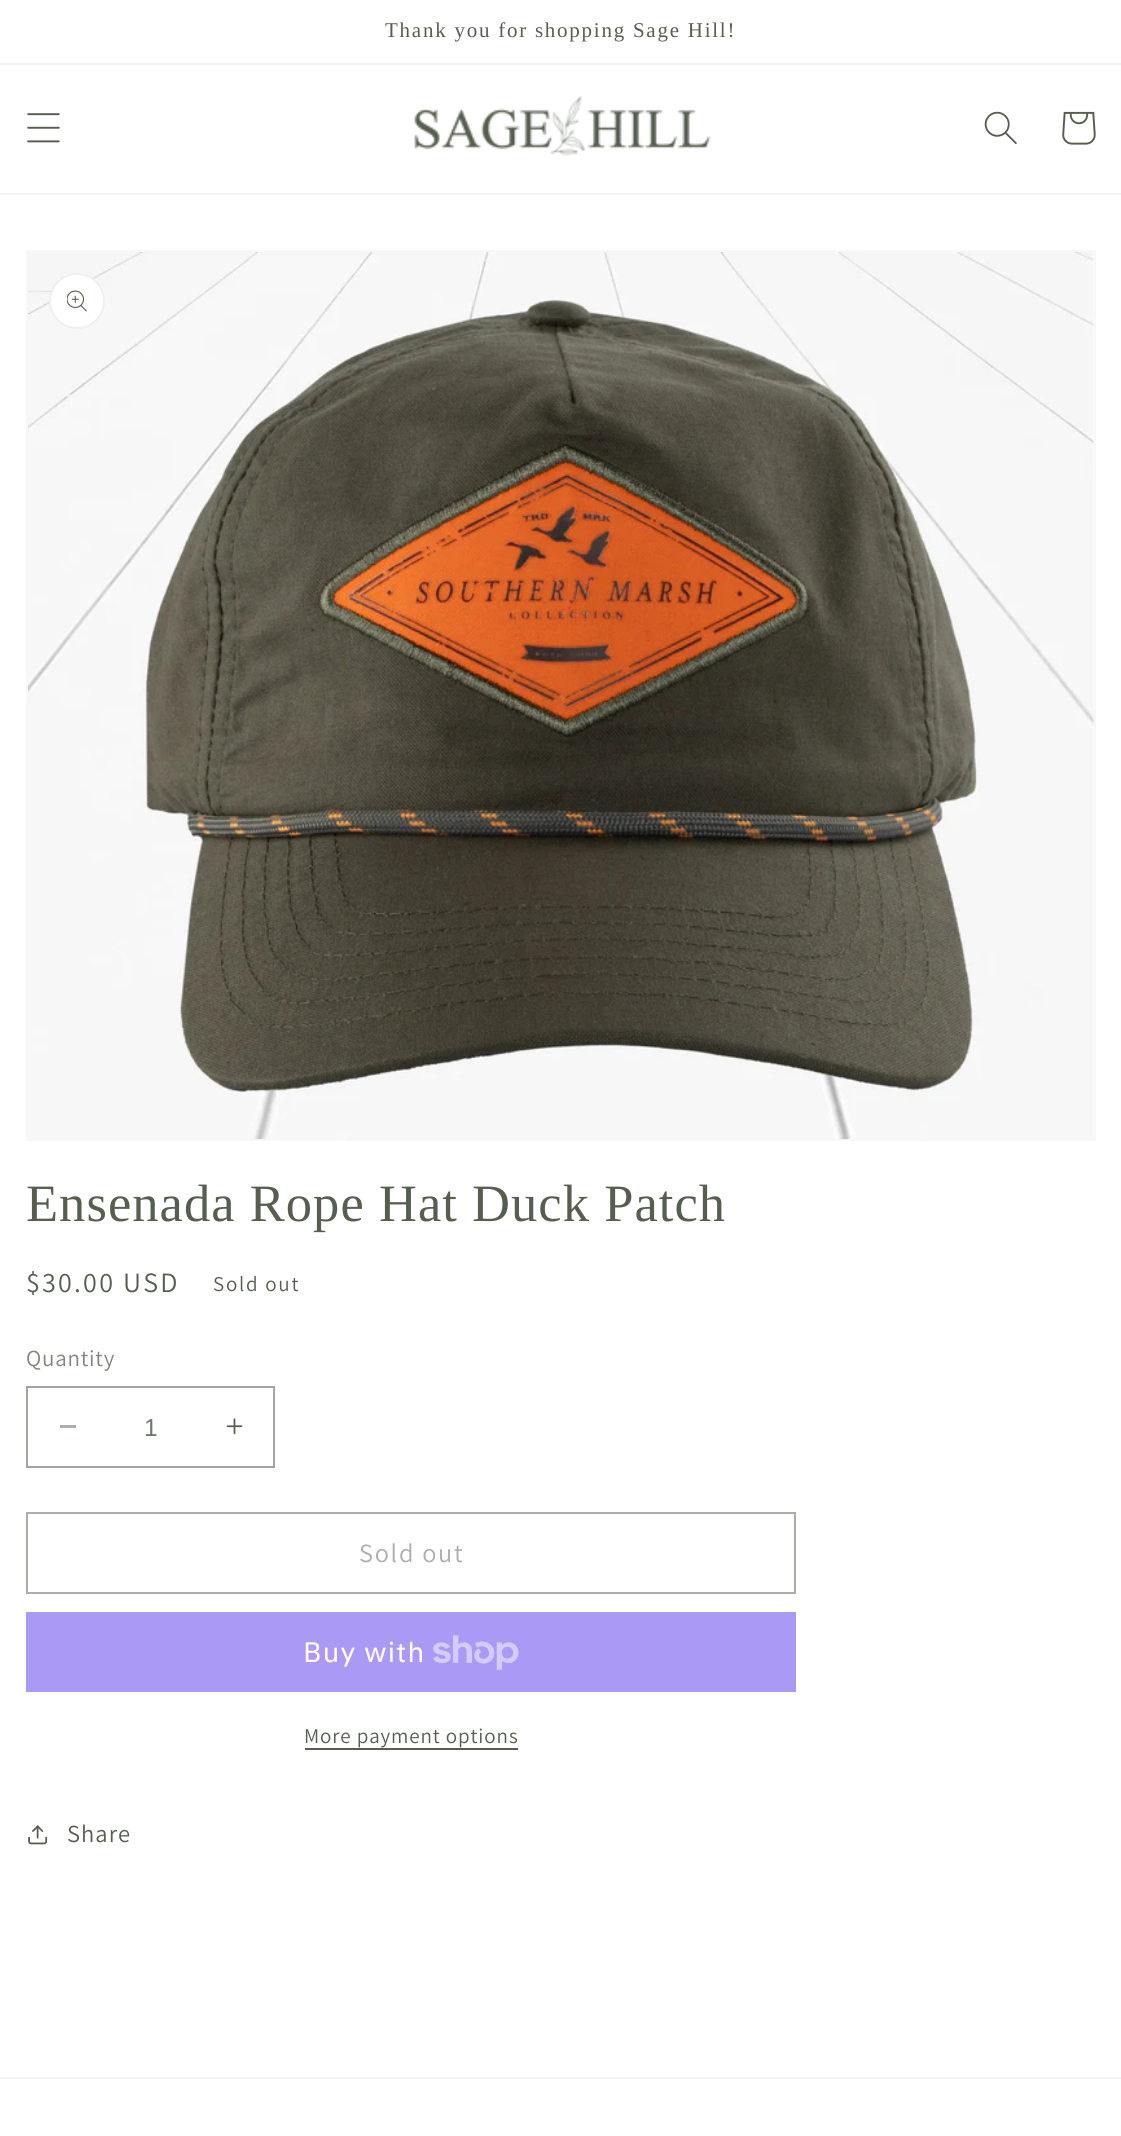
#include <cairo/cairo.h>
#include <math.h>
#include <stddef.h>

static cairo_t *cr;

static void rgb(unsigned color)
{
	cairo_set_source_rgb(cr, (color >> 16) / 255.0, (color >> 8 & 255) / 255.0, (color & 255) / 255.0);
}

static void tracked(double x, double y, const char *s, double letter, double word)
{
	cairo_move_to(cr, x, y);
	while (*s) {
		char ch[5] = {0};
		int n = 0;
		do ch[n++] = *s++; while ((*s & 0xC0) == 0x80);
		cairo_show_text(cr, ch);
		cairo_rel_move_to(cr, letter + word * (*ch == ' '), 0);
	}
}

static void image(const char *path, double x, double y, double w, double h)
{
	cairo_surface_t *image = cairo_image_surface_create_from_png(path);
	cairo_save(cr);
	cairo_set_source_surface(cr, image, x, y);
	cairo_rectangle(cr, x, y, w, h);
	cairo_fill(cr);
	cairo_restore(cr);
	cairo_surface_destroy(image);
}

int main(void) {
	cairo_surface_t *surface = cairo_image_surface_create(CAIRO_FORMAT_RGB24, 1121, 2136);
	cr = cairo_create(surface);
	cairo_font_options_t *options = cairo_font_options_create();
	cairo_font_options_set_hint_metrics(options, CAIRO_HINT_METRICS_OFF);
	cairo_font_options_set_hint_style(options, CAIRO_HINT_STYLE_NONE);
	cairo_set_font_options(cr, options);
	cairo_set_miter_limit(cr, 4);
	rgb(0xffffff);
	cairo_paint(cr);
	rgb(0xf2f2f1);
	cairo_rectangle(cr, 0, 63, 1121, 2);
	cairo_fill(cr);
	cairo_rectangle(cr, 0, 193, 1121, 2);
	cairo_fill(cr);
	image("img/1.png", 27, 113, 33, 30);
	image("img/2.png", 414, 96, 297, 60);
	image("img/3.png", 984, 111, 33, 34);
	image("img/4.png", 1062, 111, 34, 34);
	cairo_rectangle(cr, 27, 251, 1068, 889);
	rgb(0xf7f7f6);
	cairo_stroke(cr);
	image("img/5.png", 28, 252, 1066, 887);
	rgb(0xffffff);
	cairo_arc(cr, 77, 301, 28, 0, 2 * M_PI);
	cairo_fill(cr);
	cairo_arc(cr, 77, 301, 27, 0, 2 * M_PI);
	cairo_set_source_rgba(cr, 0.341, 0.369, 0.314, 0.1);
	cairo_stroke(cr);
	image("img/6.png", 67, 290, 20, 22);
	rgb(0xabafa8);
	cairo_rectangle(cr, 60, 1425, 16, 3);
	cairo_fill(cr);
	image("img/7.png", 226, 1418, 17, 17);
	cairo_rectangle(cr, 27, 1387, 247, 80);
	rgb(0xa3a69f);
	cairo_stroke(cr);
	cairo_rectangle(cr, 27, 1513, 768, 80);
	rgb(0xabafa8);
	cairo_stroke(cr);
	rgb(0xaa99f5);
	cairo_rectangle(cr, 26, 1612, 770, 80);
	cairo_fill(cr);
	image("img/8.png", 433, 1635, 86, 35);
	rgb(0x575e50);
	cairo_rectangle(cr, 305, 1748, 213, 2);
	cairo_fill(cr);
	image("img/9.png", 28, 1825, 20, 20);
	rgb(0xf2f2f1);
	cairo_rectangle(cr, 0, 2077, 1121, 2);
	cairo_fill(cr);
	cairo_select_font_face(cr, "Liberation Serif", CAIRO_FONT_SLANT_NORMAL, CAIRO_FONT_WEIGHT_NORMAL);
	cairo_set_font_size(cr, 21);
	rgb(0x575e50);
	tracked(385, 37, "Thank you for shopping Sage Hill!", 1.75, 0);
	cairo_set_font_size(cr, 52.5);
	tracked(26, 1221, "Ensenada Rope Hat Duck Patch", 1.05, 0);
	cairo_select_font_face(cr, "Assistant", CAIRO_FONT_SLANT_NORMAL, CAIRO_FONT_WEIGHT_NORMAL);
	cairo_set_font_size(cr, 28);
	tracked(26, 1292, "$30.00 USD", 2.25, 0);
	cairo_set_font_size(cr, 21);
	tracked(213, 1291, "Sold out", 1.75, 0);
	cairo_set_font_size(cr, 23);
	rgb(0x81867c);
	tracked(26, 1366, "Quantity", 0.75, 0);
	cairo_select_font_face(cr, "Liberation Sans", CAIRO_FONT_SLANT_NORMAL, CAIRO_FONT_WEIGHT_NORMAL);
	cairo_set_font_size(cr, 24.5);
	rgb(0x70766a);
	cairo_move_to(cr, 144, 1436);
	cairo_show_text(cr, "1");
	cairo_select_font_face(cr, "Assistant", CAIRO_FONT_SLANT_NORMAL, CAIRO_FONT_WEIGHT_NORMAL);
	cairo_set_font_size(cr, 26.25);
	rgb(0xabafa8);
	tracked(359, 1562, "Sold out", 1.75, 0);
	cairo_select_font_face(cr, "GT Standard", CAIRO_FONT_SLANT_NORMAL, CAIRO_FONT_WEIGHT_NORMAL);
	cairo_set_font_size(cr, 28);
	rgb(0xffffff);
	tracked(303, 1662, "Buy with", 1.05, 0);
	cairo_select_font_face(cr, "Assistant", CAIRO_FONT_SLANT_NORMAL, CAIRO_FONT_WEIGHT_NORMAL);
	cairo_set_font_size(cr, 21);
	rgb(0x575e50);
	tracked(304, 1743, "More payment options", 0.9, 0);
	cairo_set_font_size(cr, 24.5);
	tracked(67, 1842, "Share", 1.05, 0);
	cairo_surface_write_to_png(surface, "page.png");
	cairo_font_options_destroy(options);
	cairo_destroy(cr);
	cairo_surface_destroy(surface);
	return 0;
}
